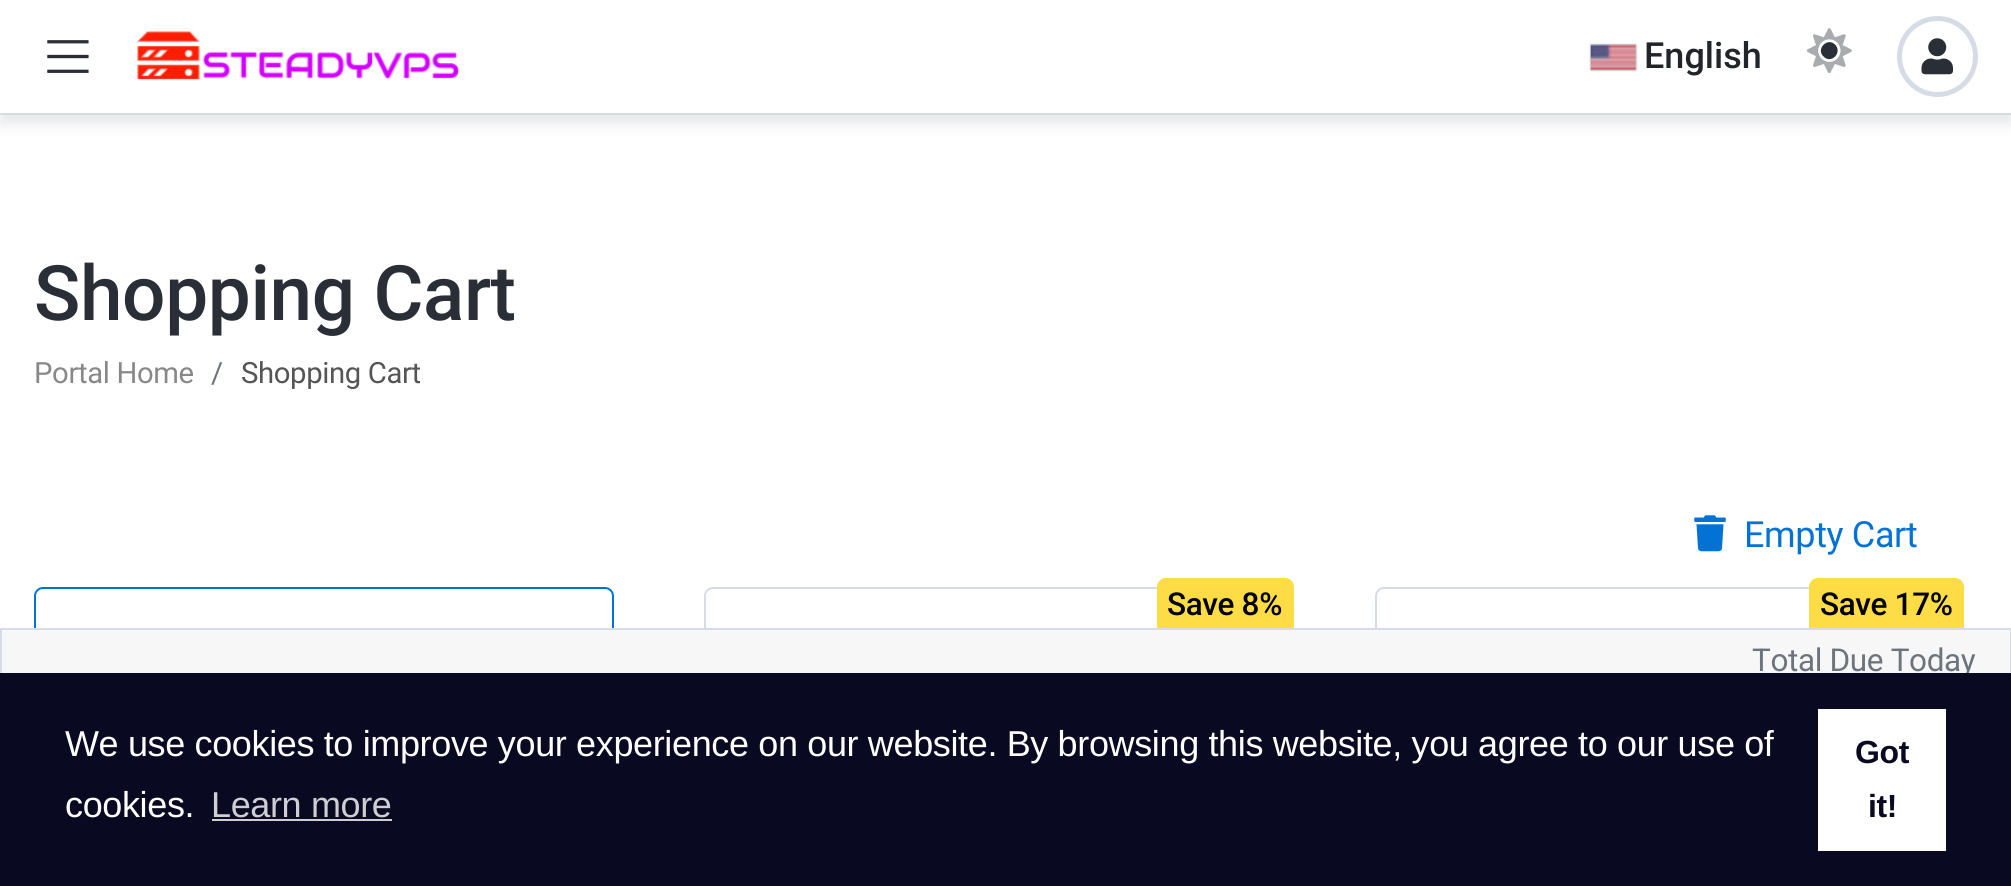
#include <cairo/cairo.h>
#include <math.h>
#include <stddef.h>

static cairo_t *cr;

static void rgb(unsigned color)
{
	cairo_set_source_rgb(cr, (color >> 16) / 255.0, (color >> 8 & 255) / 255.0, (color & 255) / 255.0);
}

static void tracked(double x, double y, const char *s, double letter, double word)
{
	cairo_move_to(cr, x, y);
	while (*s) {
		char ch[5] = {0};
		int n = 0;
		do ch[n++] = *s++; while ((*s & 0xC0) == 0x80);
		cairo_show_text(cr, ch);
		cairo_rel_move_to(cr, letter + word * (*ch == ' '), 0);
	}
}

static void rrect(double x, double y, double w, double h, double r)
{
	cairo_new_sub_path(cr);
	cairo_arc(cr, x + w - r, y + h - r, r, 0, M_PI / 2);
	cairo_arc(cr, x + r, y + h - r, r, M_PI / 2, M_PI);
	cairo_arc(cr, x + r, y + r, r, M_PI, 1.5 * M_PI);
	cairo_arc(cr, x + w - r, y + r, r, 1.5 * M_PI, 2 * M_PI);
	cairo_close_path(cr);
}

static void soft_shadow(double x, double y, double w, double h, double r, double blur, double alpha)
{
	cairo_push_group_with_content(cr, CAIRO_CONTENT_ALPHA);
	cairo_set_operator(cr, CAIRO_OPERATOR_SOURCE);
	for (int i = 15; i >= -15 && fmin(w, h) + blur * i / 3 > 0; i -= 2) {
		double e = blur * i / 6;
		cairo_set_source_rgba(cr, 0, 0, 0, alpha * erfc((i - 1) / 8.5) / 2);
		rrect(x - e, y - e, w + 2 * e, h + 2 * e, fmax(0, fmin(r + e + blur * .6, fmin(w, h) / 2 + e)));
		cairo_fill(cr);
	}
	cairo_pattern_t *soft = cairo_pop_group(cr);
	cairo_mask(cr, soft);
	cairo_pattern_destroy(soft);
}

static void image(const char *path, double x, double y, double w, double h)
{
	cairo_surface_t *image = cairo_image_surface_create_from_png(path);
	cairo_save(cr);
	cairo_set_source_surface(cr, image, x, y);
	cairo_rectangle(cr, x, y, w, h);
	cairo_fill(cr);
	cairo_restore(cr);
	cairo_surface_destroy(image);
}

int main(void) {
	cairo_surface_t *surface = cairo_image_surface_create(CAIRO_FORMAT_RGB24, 2011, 886);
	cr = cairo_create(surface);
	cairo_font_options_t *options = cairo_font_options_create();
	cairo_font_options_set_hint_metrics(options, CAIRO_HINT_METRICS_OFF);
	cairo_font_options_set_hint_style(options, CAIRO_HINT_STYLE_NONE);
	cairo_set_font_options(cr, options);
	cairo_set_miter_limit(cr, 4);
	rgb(0xffffff);
	cairo_paint(cr);
	rgb(0x000b28);
	soft_shadow(0, 9, 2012, 115, 0, 7, 0.1);
	rgb(0xffffff);
	cairo_rectangle(cr, 0, 0, 2011, 113);
	cairo_fill(cr);
	rgb(0xd5dce5);
	cairo_rectangle(cr, 0, 113, 2011, 2);
	cairo_fill(cr);
	image("img/1.png", 47, 40, 42, 33);
	image("img/2.png", 137, 31, 323, 49);
	rgb(0x888888);
	soft_shadow(1591, 45, 45, 25, 0, 1, 1);
	rgb(0xdbdbdb);
	cairo_rectangle(cr, 1591, 45, 45, 25);
	cairo_fill(cr);
	image("img/3.png", 1590, 44, 46, 26);
	rgb(0x2a2e36);
	cairo_new_path(cr);
	cairo_move_to(cr, 1835, 44.5);
	cairo_curve_to(cr, 1843, 52.5, 1831, 64.5, 1823.5, 56.5);
	cairo_curve_to(cr, 1815.5, 49, 1827.5, 37, 1835, 44.5);
	cairo_close_path(cr);
	cairo_fill(cr);
	image("img/4.png", 1806, 28, 46, 46);
	cairo_arc(cr, 1937.5, 56.5, 38, 0, 2 * M_PI);
	rgb(0xd5dce5);
	cairo_set_line_width(cr, 5);
	cairo_stroke(cr);
	image("img/5.png", 1921, 38, 32, 37);
	image("img/6.png", 1694, 515, 32, 37);
	rrect(35, 588, 578, 178, 8);
	rgb(0x0273d4);
	cairo_set_line_width(cr, 2);
	cairo_stroke(cr);
	rrect(705, 588, 579, 178, 8);
	rgb(0xd5dce5);
	cairo_stroke(cr);
	rgb(0xfedc45);
	rrect(1157, 578, 137, 57, 9);
	cairo_fill(cr);
	rrect(1376, 588, 578, 178, 8);
	rgb(0xd5dce5);
	cairo_stroke(cr);
	rgb(0xfedc45);
	rrect(1809, 578, 155, 57, 9);
	cairo_fill(cr);
	rgb(0xf7f7f7);
	cairo_rectangle(cr, 2, 630, 2008, 43);
	cairo_fill(cr);
	cairo_rectangle(cr, 1, 629, 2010, 146);
	rgb(0xd5dce5);
	cairo_stroke(cr);
	cairo_select_font_face(cr, "Roboto Medium", CAIRO_FONT_SLANT_NORMAL, CAIRO_FONT_WEIGHT_NORMAL);
	cairo_set_font_size(cr, 36);
	rgb(0x212529);
	cairo_move_to(cr, 1644, 68);
	cairo_show_text(cr, "English");
	cairo_set_font_size(cr, 76.5);
	rgb(0x2a2e36);
	tracked(34, 320, "Shopping Cart", -0.36, 0);
	cairo_select_font_face(cr, "Roboto", CAIRO_FONT_SLANT_NORMAL, CAIRO_FONT_WEIGHT_NORMAL);
	cairo_set_font_size(cr, 29.25);
	rgb(0x888888);
	tracked(34, 383, "Portal Home", -0.36, 0);
	rgb(0x6c757d);
	tracked(211, 383, "/", -0.36, 0);
	rgb(0x555555);
	tracked(241, 383, "Shopping Cart", -0.36, 0);
	cairo_set_font_size(cr, 36);
	rgb(0x0273d4);
	tracked(1744, 547, "Empty Cart", -0.36, 0);
	cairo_select_font_face(cr, "Roboto Medium", CAIRO_FONT_SLANT_NORMAL, CAIRO_FONT_WEIGHT_NORMAL);
	cairo_set_font_size(cr, 31.5);
	rgb(0x000000);
	tracked(1167, 615, "Save 8%", -0.36, 0);
	tracked(1820, 615, "Save 17%", -0.36, 0);
	cairo_select_font_face(cr, "Roboto", CAIRO_FONT_SLANT_NORMAL, CAIRO_FONT_WEIGHT_NORMAL);
	rgb(0x6c757d);
	tracked(1752, 671, "Total Due Today", -0.36, 0);
	rgb(0x090a21);
	cairo_rectangle(cr, 0, 673, 2011, 213);
	cairo_fill(cr);
	cairo_select_font_face(cr, "Liberation Sans", CAIRO_FONT_SLANT_NORMAL, CAIRO_FONT_WEIGHT_NORMAL);
	cairo_set_font_size(cr, 36);
	rgb(0xffffff);
	tracked(65, 756, "We use cookies to improve your experience on our website. By browsing this website, you agree to our use of", -0.36, 0);
	tracked(65, 817, "cookies.", -0.36, 0);
	rgb(0xceced3);
	tracked(211, 817, "Learn more", -0.36, 0);
	cairo_rectangle(cr, 212, 819, 180, 2);
	cairo_fill(cr);
	rgb(0xffffff);
	cairo_rectangle(cr, 1818, 709, 128, 142);
	cairo_fill(cr);
	cairo_select_font_face(cr, "Liberation Sans", CAIRO_FONT_SLANT_NORMAL, CAIRO_FONT_WEIGHT_BOLD);
	cairo_set_font_size(cr, 32);
	rgb(0x090a21);
	tracked(1855, 763, "Got", -0.36, 0);
	tracked(1868, 817, "it!", -0.36, 0);
	cairo_surface_write_to_png(surface, "page.png");
	cairo_font_options_destroy(options);
	cairo_destroy(cr);
	cairo_surface_destroy(surface);
	return 0;
}
